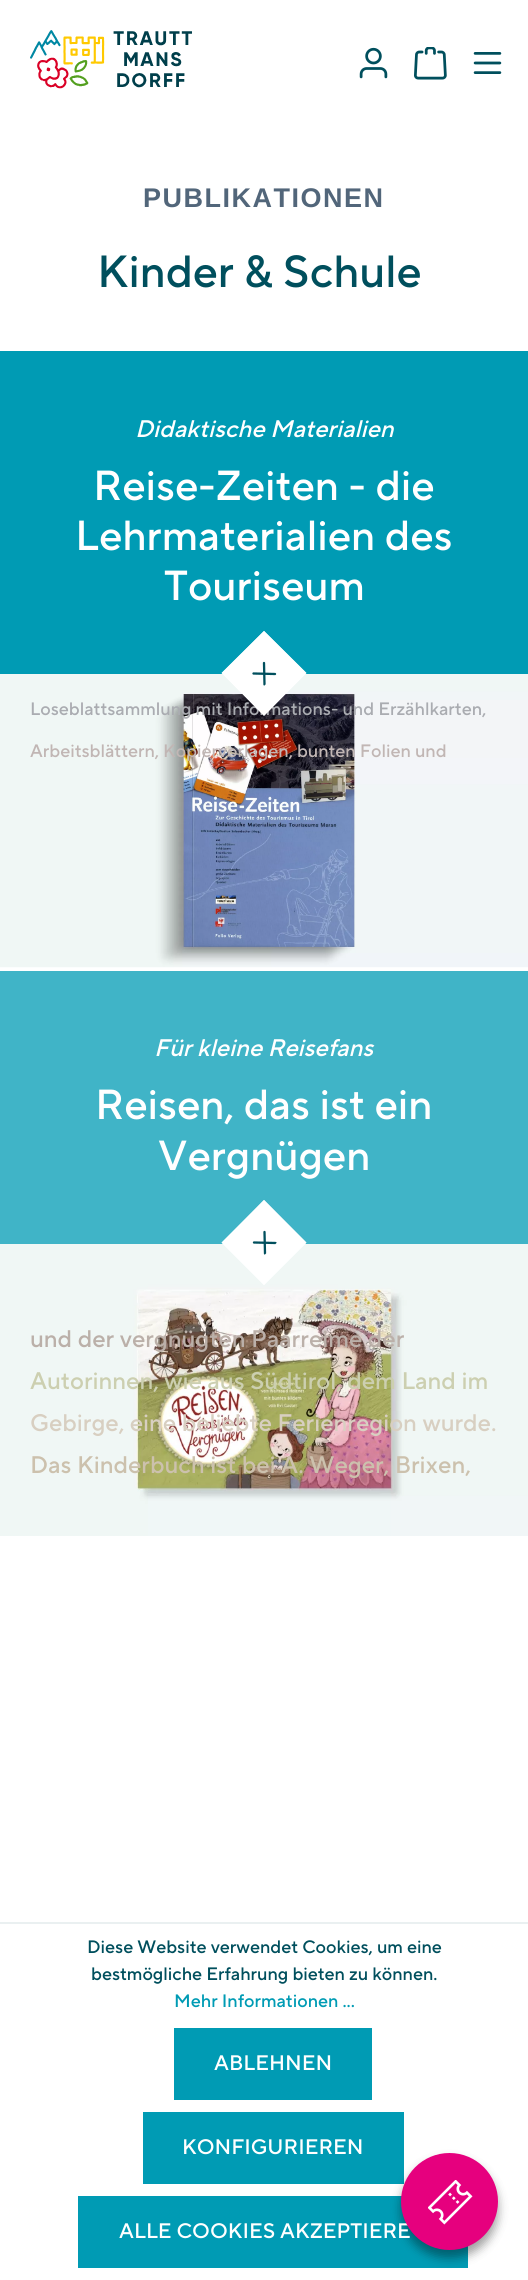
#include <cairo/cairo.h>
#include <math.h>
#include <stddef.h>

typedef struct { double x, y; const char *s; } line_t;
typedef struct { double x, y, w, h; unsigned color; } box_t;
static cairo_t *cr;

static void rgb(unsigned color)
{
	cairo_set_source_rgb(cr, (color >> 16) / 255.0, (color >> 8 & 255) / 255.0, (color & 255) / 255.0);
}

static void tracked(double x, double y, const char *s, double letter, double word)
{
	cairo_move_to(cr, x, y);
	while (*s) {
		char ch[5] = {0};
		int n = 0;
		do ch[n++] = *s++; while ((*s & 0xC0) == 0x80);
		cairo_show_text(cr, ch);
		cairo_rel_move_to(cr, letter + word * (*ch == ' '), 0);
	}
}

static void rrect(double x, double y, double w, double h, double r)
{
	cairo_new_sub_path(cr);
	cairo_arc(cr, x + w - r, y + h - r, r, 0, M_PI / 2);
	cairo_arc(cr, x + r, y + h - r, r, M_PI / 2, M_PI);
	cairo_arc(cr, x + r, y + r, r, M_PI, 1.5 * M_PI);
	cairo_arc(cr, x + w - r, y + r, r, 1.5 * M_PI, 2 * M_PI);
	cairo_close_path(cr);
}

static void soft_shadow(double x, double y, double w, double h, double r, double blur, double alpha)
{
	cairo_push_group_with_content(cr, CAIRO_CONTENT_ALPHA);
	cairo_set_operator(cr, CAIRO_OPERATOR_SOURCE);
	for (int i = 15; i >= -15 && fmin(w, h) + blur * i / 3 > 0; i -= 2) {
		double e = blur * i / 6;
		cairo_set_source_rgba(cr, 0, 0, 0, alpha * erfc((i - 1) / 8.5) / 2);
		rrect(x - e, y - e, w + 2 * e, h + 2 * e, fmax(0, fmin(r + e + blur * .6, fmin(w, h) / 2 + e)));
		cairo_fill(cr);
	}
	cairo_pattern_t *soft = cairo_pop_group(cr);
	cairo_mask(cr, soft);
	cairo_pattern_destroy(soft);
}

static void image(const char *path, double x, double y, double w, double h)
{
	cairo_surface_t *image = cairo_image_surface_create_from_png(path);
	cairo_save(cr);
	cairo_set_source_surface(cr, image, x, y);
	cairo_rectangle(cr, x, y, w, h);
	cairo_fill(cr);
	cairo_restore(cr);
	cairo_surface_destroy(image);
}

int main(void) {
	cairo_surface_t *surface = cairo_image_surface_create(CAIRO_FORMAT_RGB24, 528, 2280);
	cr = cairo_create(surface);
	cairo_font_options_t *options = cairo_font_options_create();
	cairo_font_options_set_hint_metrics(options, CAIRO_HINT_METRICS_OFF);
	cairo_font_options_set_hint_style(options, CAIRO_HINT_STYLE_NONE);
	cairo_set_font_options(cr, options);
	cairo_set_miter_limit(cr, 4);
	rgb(0xffffff);
	cairo_paint(cr);
	image("img/1.png", 30, 30, 162, 59);
	image("img/2.png", 359, 47, 29, 32);
	image("img/3.png", 414, 47, 33, 33);
	image("img/4.png", 473, 52, 29, 22);
	rgb(0x009bb4);
	cairo_rectangle(cr, 0, 351, 528, 323);
	cairo_fill(cr);
	image("img/5.png", 0, 674, 528, 294);
	rgb(0x40b4c7);
	cairo_rectangle(cr, 0, 971, 528, 273);
	cairo_fill(cr);
	image("img/6.png", 0, 1244, 528, 292);
	rgb(0xffffff);
	cairo_new_path(cr);
	cairo_move_to(cr, 264, 1200);
	cairo_line_to(cr, 306, 1243);
	cairo_line_to(cr, 264, 1285);
	cairo_line_to(cr, 222, 1243);
	cairo_close_path(cr);
	cairo_fill(cr);
	cairo_new_path(cr);
	cairo_move_to(cr, 264, 1201);
	cairo_line_to(cr, 305.5, 1242.5);
	cairo_line_to(cr, 264, 1284);
	cairo_line_to(cr, 222.5, 1242.5);
	cairo_close_path(cr);
	cairo_set_line_width(cr, 1.5);
	cairo_stroke(cr);
	cairo_save(cr);
	cairo_new_path(cr);
	cairo_move_to(cr, 274.5, 1219);
	cairo_line_to(cr, 287.5, 1232);
	cairo_line_to(cr, 253.5, 1266);
	cairo_line_to(cr, 240.5, 1253);
	cairo_close_path(cr);
	cairo_clip(cr);
	cairo_new_path(cr);
	cairo_move_to(cr, 264.5, 1232);
	cairo_line_to(cr, 265, 1253.5);
	cairo_move_to(cr, 275.5, 1243);
	cairo_line_to(cr, 254, 1242.5);
	rgb(0x004f5d);
	cairo_set_line_width(cr, 2.3);
	cairo_set_line_cap(cr, CAIRO_LINE_CAP_ROUND);
	cairo_stroke(cr);
	cairo_restore(cr);
	{
		static const box_t items[] = {
			{0, 1922, 528, 2, 0xeaf0f1},
			{174, 2028, 198, 72, 0x009bb4},
			{143, 2112, 261, 72, 0x009bb4},
			{78, 2196, 390, 72, 0x009bb4},
		};
		for (size_t i = 0; i < sizeof items / sizeof *items; i++) {
			rgb(items[i].color);
			cairo_rectangle(cr, items[i].x, items[i].y, items[i].w, items[i].h);
			cairo_fill(cr);
		}
	}
	rgb(0x000000);
	soft_shadow(401, 2160, 97, 98, 48.5, 5, 0.38);
	cairo_select_font_face(cr, "Liberation Sans", CAIRO_FONT_SLANT_NORMAL, CAIRO_FONT_WEIGHT_BOLD);
	cairo_set_font_size(cr, 27);
	rgb(0x52667a);
	tracked(143, 207, "PUBLIKATIONEN", 1.5, 0);
	cairo_select_font_face(cr, "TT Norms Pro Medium", CAIRO_FONT_SLANT_NORMAL, CAIRO_FONT_WEIGHT_NORMAL);
	cairo_set_font_size(cr, 45);
	rgb(0x004f5d);
	cairo_move_to(cr, 97, 287);
	cairo_show_text(cr, "Kinder & Schule");
	cairo_select_font_face(cr, "TT Norms Pro Medium", CAIRO_FONT_SLANT_ITALIC, CAIRO_FONT_WEIGHT_NORMAL);
	cairo_set_font_size(cr, 24);
	rgb(0xffffff);
	cairo_move_to(cr, 135, 437);
	cairo_show_text(cr, "Didaktische Materialien");
	cairo_select_font_face(cr, "TT Norms Pro Medium", CAIRO_FONT_SLANT_NORMAL, CAIRO_FONT_WEIGHT_NORMAL);
	cairo_set_font_size(cr, 42);
	{
		static const line_t items[] = {
			{93, 500, "Reise-Zeiten - die"},
			{75, 550, "Lehrmaterialien des"},
			{164, 600, "Touriseum"},
		};
		for (size_t i = 0; i < sizeof items / sizeof *items; i++) {
			cairo_move_to(cr, items[i].x, items[i].y);
			cairo_show_text(cr, items[i].s);
		}
	}
	cairo_set_font_size(cr, 18);
	rgb(0xaaacb1);
	cairo_move_to(cr, 30, 715);
	cairo_show_text(cr, "Loseblattsammlung mit Informations- und Erzählkarten,");
	rgb(0xc1b6b4);
	cairo_move_to(cr, 30, 757);
	cairo_show_text(cr, "Arbeitsblättern, Kopiervorlagen, bunten Folien und");
	rgb(0xffffff);
	cairo_new_path(cr);
	cairo_move_to(cr, 264, 631);
	cairo_line_to(cr, 306, 673);
	cairo_line_to(cr, 264, 716);
	cairo_line_to(cr, 222, 673);
	cairo_close_path(cr);
	cairo_fill(cr);
	cairo_new_path(cr);
	cairo_move_to(cr, 264, 632);
	cairo_line_to(cr, 305.5, 673);
	cairo_line_to(cr, 264, 714.5);
	cairo_line_to(cr, 222.5, 673);
	cairo_close_path(cr);
	cairo_stroke(cr);
	cairo_save(cr);
	cairo_new_path(cr);
	cairo_move_to(cr, 274.5, 650);
	cairo_line_to(cr, 287.5, 662.5);
	cairo_line_to(cr, 253.5, 696.5);
	cairo_line_to(cr, 240.5, 684);
	cairo_close_path(cr);
	cairo_clip(cr);
	cairo_new_path(cr);
	cairo_move_to(cr, 264, 663);
	cairo_line_to(cr, 264.5, 684.5);
	rgb(0x004f5d);
	cairo_set_line_width(cr, 2.3);
	cairo_set_line_cap(cr, CAIRO_LINE_CAP_ROUND);
	cairo_stroke(cr);
	cairo_restore(cr);
	cairo_new_path(cr);
	cairo_move_to(cr, 275, 674);
	cairo_line_to(cr, 253.5, 673.5);
	rgb(0x004f5d);
	cairo_set_line_width(cr, 2.3);
	cairo_set_line_cap(cr, CAIRO_LINE_CAP_ROUND);
	cairo_stroke(cr);
	cairo_select_font_face(cr, "TT Norms Pro Medium", CAIRO_FONT_SLANT_ITALIC, CAIRO_FONT_WEIGHT_NORMAL);
	cairo_set_font_size(cr, 24);
	rgb(0xffffff);
	cairo_move_to(cr, 154, 1056);
	cairo_show_text(cr, "Für kleine Reisefans");
	cairo_select_font_face(cr, "TT Norms Pro Medium", CAIRO_FONT_SLANT_NORMAL, CAIRO_FONT_WEIGHT_NORMAL);
	cairo_set_font_size(cr, 42);
	cairo_move_to(cr, 95, 1119);
	cairo_show_text(cr, "Reisen, das ist ein");
	cairo_move_to(cr, 158, 1170);
	cairo_show_text(cr, "Vergnügen");
	cairo_set_font_size(cr, 24);
	rgb(0xbbb0a9);
	cairo_move_to(cr, 30, 1347);
	cairo_show_text(cr, "und der vergnügten Paarreime der");
	rgb(0xcccfb0);
	cairo_move_to(cr, 30, 1389);
	cairo_show_text(cr, "Autorinnen, wie aus Südtirol, dem Land im");
	rgb(0xd8cfc1);
	cairo_move_to(cr, 30, 1431);
	cairo_show_text(cr, "Gebirge, eine beliebte Ferienregion wurde.");
	rgb(0xccc1ad);
	cairo_move_to(cr, 30, 1473);
	cairo_show_text(cr, "Das Kinderbuch ist bei A. Weger, Brixen,");
	cairo_set_font_size(cr, 18);
	rgb(0x004f5d);
	cairo_move_to(cr, 87, 1953);
	cairo_show_text(cr, "Diese Website verwendet Cookies, um eine");
	cairo_move_to(cr, 91, 1980);
	cairo_show_text(cr, "bestmögliche Erfahrung bieten zu können.");
	rgb(0x009bb4);
	cairo_move_to(cr, 174, 2007);
	cairo_show_text(cr, "Mehr Informationen ...");
	cairo_set_font_size(cr, 21);
	rgb(0xffffff);
	{
		static const line_t items[] = {
			{214, 2070, "ABLEHNEN"},
			{182, 2154, "KONFIGURIEREN"},
			{119, 2238, "ALLE COOKIES AKZEPTIERE"},
		};
		for (size_t i = 0; i < sizeof items / sizeof *items; i++) {
			cairo_move_to(cr, items[i].x, items[i].y);
			cairo_show_text(cr, items[i].s);
		}
	}
	rgb(0xe6007e);
	cairo_new_path(cr);
	cairo_arc(cr, 449.5, 2201.5, 48.5, 0, 2 * M_PI);
	cairo_fill(cr);
	image("img/7.png", 428, 2180, 45, 45);
	cairo_surface_write_to_png(surface, "page.png");
	cairo_font_options_destroy(options);
	cairo_destroy(cr);
	cairo_surface_destroy(surface);
	return 0;
}
